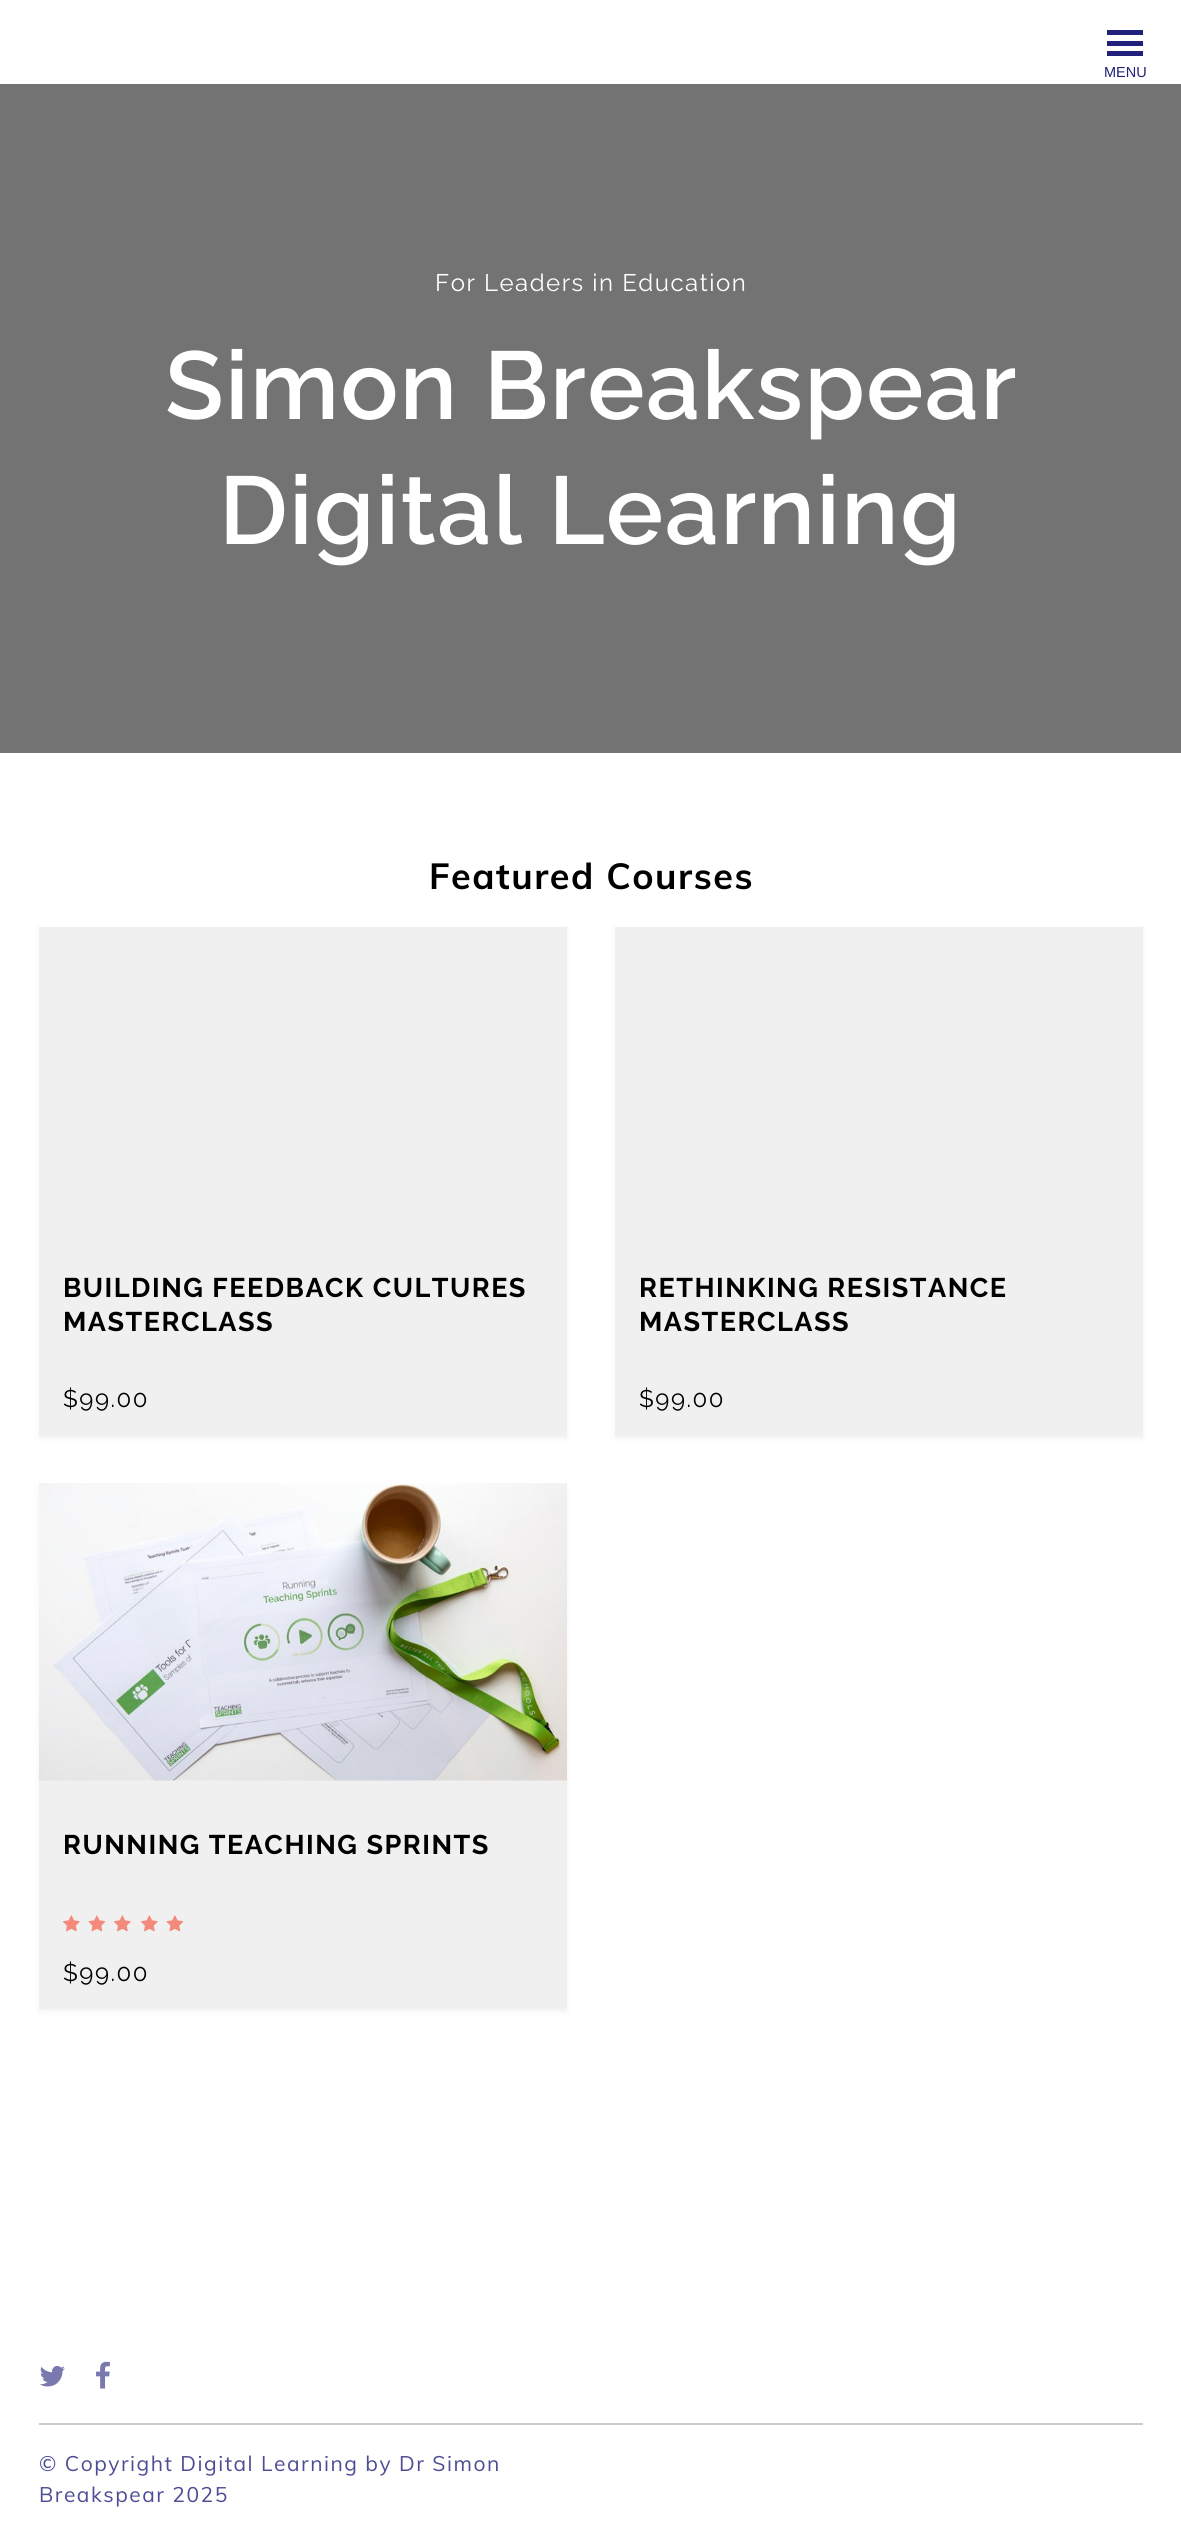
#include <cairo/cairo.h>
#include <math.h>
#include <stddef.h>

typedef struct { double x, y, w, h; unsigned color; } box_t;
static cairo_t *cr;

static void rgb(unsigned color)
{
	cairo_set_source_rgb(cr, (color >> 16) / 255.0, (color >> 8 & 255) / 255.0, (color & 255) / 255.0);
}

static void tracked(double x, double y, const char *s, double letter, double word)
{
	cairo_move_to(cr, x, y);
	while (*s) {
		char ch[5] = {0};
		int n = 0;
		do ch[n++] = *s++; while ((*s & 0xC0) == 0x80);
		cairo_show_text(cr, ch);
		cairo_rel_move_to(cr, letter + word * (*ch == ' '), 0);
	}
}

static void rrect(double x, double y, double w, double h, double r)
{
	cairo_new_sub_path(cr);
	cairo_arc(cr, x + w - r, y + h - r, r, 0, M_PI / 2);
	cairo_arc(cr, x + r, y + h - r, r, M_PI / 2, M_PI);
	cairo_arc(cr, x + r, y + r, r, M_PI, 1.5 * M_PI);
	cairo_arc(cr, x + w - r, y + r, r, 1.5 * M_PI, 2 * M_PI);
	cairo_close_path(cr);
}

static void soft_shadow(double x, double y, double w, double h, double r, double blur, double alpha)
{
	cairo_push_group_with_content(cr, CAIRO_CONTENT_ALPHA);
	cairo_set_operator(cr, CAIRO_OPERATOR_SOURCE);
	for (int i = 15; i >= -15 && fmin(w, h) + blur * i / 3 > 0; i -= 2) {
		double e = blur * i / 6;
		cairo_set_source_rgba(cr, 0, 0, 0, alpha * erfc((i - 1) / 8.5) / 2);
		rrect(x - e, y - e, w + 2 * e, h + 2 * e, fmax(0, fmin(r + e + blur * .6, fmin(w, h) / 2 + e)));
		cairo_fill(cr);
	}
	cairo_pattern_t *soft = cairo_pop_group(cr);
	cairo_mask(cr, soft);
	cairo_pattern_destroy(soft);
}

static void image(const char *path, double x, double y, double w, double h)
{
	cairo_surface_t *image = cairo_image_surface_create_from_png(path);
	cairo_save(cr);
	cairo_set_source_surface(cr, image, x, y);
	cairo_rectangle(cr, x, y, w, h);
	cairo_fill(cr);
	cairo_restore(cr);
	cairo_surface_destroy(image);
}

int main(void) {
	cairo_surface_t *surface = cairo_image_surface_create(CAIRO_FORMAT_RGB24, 1181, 2535);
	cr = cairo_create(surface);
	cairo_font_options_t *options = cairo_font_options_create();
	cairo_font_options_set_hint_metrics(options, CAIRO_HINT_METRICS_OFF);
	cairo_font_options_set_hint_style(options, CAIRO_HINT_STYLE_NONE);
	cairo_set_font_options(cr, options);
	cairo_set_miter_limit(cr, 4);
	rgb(0xffffff);
	cairo_paint(cr);
	{
		static const box_t items[] = {
			{1107, 41, 36, 5, 0x21207a},
			{1107, 30, 36, 5, 0x21207a},
			{1107, 51, 36, 5, 0x21207a},
			{0, 84, 1181, 669, 0x737373},
		};
		for (size_t i = 0; i < sizeof items / sizeof *items; i++) {
			rgb(items[i].color);
			cairo_rectangle(cr, items[i].x, items[i].y, items[i].w, items[i].h);
			cairo_fill(cr);
		}
	}
	rgb(0x000000);
	soft_shadow(39, 930, 528, 509, 0, 3, 0.05);
	rgb(0xf0f0f0);
	cairo_rectangle(cr, 39, 927, 528, 509);
	cairo_fill(cr);
	rgb(0x000000);
	soft_shadow(615, 930, 528, 509, 0, 3, 0.05);
	rgb(0xf0f0f0);
	cairo_rectangle(cr, 615, 927, 528, 509);
	cairo_fill(cr);
	rgb(0x000000);
	soft_shadow(39, 1487, 528, 525, 0, 3, 0.05);
	rgb(0xf0f0f0);
	cairo_rectangle(cr, 39, 1780, 528, 229);
	cairo_fill(cr);
	image("img/1.png", 39, 1483, 528, 298);
	image("img/2.png", 63, 1915, 17, 17);
	image("img/3.png", 88, 1915, 18, 17);
	image("img/2.png", 114, 1915, 17, 17);
	image("img/2.png", 141, 1915, 17, 17);
	image("img/3.png", 166, 1915, 18, 17);
	image("img/4.png", 40, 2365, 25, 22);
	image("img/5.png", 96, 2361, 14, 28);
	rgb(0xcccccc);
	cairo_rectangle(cr, 39, 2423, 1104, 2);
	cairo_fill(cr);
	cairo_select_font_face(cr, "Liberation Sans", CAIRO_FONT_SLANT_NORMAL, CAIRO_FONT_WEIGHT_NORMAL);
	cairo_set_font_size(cr, 14.5);
	rgb(0x21207a);
	cairo_move_to(cr, 1104, 77);
	cairo_show_text(cr, "MENU");
	cairo_select_font_face(cr, "Raleway", CAIRO_FONT_SLANT_NORMAL, CAIRO_FONT_WEIGHT_NORMAL);
	cairo_set_font_size(cr, 24);
	rgb(0xffffff);
	tracked(435, 291, "For Leaders in Education", 1.5, 0);
	cairo_select_font_face(cr, "Raleway SemiBold", CAIRO_FONT_SLANT_NORMAL, CAIRO_FONT_WEIGHT_NORMAL);
	cairo_set_font_size(cr, 96);
	tracked(165, 419, "Simon Breakspear", 1.5, 0);
	tracked(219, 544, "Digital Learning", 1.5, 0);
	cairo_select_font_face(cr, "Muli", CAIRO_FONT_SLANT_NORMAL, CAIRO_FONT_WEIGHT_BOLD);
	cairo_set_font_size(cr, 36);
	rgb(0x000000);
	tracked(429, 889, "Featured Courses", 1.5, 0);
	cairo_select_font_face(cr, "Raleway", CAIRO_FONT_SLANT_NORMAL, CAIRO_FONT_WEIGHT_BOLD);
	cairo_set_font_size(cr, 27);
	tracked(63, 1297, "BUILDING FEEDBACK CULTURES", 1.5, 0);
	tracked(63, 1331, "MASTERCLASS", 1.5, 0);
	cairo_select_font_face(cr, "Raleway", CAIRO_FONT_SLANT_NORMAL, CAIRO_FONT_WEIGHT_NORMAL);
	cairo_set_font_size(cr, 24);
	tracked(63, 1407, "$99.00", 1.5, 0);
	cairo_select_font_face(cr, "Raleway", CAIRO_FONT_SLANT_NORMAL, CAIRO_FONT_WEIGHT_BOLD);
	cairo_set_font_size(cr, 27);
	tracked(639, 1297, "RETHINKING RESISTANCE", 1.5, 0);
	tracked(639, 1331, "MASTERCLASS", 1.5, 0);
	cairo_select_font_face(cr, "Raleway", CAIRO_FONT_SLANT_NORMAL, CAIRO_FONT_WEIGHT_NORMAL);
	cairo_set_font_size(cr, 24);
	tracked(639, 1407, "$99.00", 1.5, 0);
	cairo_select_font_face(cr, "Raleway", CAIRO_FONT_SLANT_NORMAL, CAIRO_FONT_WEIGHT_BOLD);
	cairo_set_font_size(cr, 27);
	tracked(63, 1854, "RUNNING TEACHING SPRINTS", 1.5, 0);
	cairo_select_font_face(cr, "Raleway", CAIRO_FONT_SLANT_NORMAL, CAIRO_FONT_WEIGHT_NORMAL);
	cairo_set_font_size(cr, 24);
	tracked(63, 1981, "$99.00", 1.5, 0);
	cairo_select_font_face(cr, "Muli", CAIRO_FONT_SLANT_NORMAL, CAIRO_FONT_WEIGHT_NORMAL);
	cairo_set_font_size(cr, 21);
	rgb(0x4d4d95);
	tracked(39, 2471, "© Copyright Digital Learning by Dr Simon", 1.5, 0);
	tracked(39, 2502, "Breakspear 2025", 1.5, 0);
	cairo_surface_write_to_png(surface, "page.png");
	cairo_font_options_destroy(options);
	cairo_destroy(cr);
	cairo_surface_destroy(surface);
	return 0;
}
